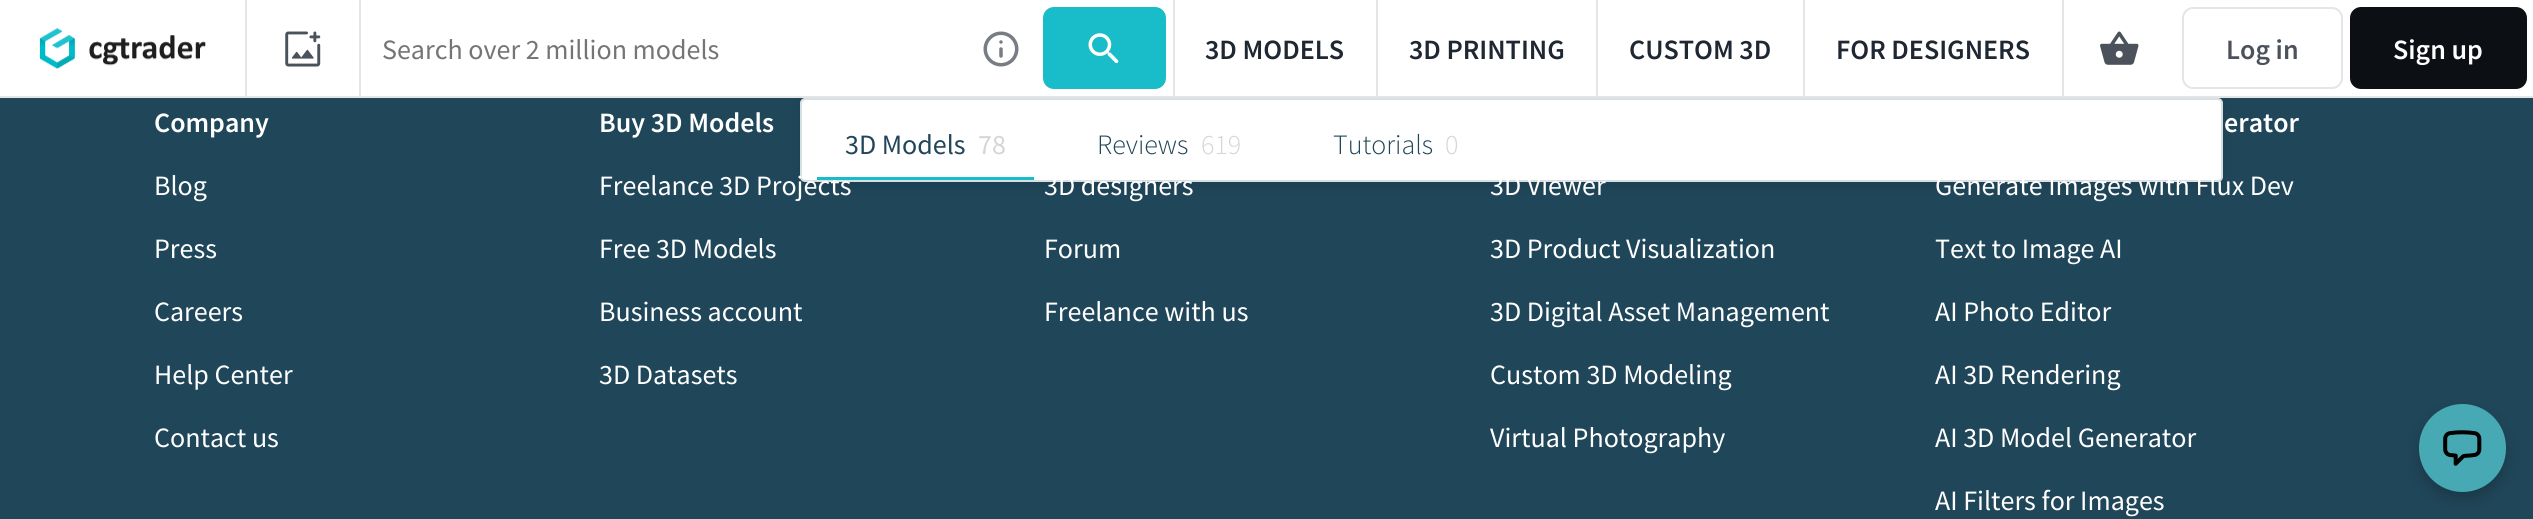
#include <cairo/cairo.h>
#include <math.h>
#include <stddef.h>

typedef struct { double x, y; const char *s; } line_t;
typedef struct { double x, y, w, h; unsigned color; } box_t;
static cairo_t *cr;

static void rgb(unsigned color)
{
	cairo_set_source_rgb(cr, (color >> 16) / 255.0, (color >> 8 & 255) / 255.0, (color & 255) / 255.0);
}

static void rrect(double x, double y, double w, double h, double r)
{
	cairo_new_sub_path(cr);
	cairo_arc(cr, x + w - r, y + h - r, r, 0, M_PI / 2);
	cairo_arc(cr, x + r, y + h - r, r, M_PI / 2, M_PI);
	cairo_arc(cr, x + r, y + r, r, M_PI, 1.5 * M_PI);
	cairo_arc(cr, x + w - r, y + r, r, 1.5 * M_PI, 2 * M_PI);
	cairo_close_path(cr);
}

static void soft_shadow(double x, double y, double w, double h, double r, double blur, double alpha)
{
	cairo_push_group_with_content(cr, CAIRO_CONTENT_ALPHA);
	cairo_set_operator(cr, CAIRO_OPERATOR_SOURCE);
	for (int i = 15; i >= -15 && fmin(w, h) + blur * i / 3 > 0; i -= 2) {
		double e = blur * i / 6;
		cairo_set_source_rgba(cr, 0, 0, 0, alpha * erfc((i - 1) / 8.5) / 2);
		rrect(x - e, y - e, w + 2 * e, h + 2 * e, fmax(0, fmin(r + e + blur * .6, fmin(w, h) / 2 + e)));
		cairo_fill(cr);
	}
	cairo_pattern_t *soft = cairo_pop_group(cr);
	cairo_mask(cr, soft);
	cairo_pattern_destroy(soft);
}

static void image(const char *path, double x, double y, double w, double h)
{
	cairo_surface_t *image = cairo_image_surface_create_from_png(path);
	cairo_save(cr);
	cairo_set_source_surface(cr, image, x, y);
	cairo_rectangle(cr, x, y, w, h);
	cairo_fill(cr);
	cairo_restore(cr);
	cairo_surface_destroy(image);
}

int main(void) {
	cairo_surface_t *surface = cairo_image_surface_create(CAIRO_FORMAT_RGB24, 2533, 519);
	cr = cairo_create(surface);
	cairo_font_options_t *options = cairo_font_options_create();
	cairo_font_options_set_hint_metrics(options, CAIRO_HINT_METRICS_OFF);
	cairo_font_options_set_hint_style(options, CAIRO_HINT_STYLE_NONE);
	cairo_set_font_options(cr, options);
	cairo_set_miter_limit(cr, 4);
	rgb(0x204659);
	cairo_paint(cr);
	rgb(0x0e1e26);
	soft_shadow(800, 103, 1423, 84, 5, 5, 0.15);
	rgb(0xffffff);
	cairo_rectangle(cr, 0, 0, 2533, 96);
	cairo_fill(cr);
	rgb(0xe4e5e6);
	cairo_rectangle(cr, 0, 96, 2533, 2);
	cairo_fill(cr);
	image("img/1.png", 39, 28, 167, 41);
	{
		static const box_t items[] = {
			{1173, 0, 2, 96, 0xe4e5e6},
			{245, 0, 2, 96, 0xe4e5e6},
			{359, 0, 2, 96, 0xe4e5e6},
		};
		for (size_t i = 0; i < sizeof items / sizeof *items; i++) {
			rgb(items[i].color);
			cairo_rectangle(cr, items[i].x, items[i].y, items[i].w, items[i].h);
			cairo_fill(cr);
		}
	}
	image("img/2.png", 285, 31, 36, 36);
	image("img/3.png", 983, 31, 36, 36);
	rgb(0x19bcc9);
	rrect(1044, 8, 121, 80, 10);
	cairo_fill_preserve(cr);
	cairo_stroke(cr);
	image("img/4.png", 1088, 33, 31, 31);
	{
		static const box_t items[] = {
			{1376, 0, 2, 96, 0xe4e5e6},
			{1596, 0, 2, 96, 0xe4e5e6},
			{1803, 0, 2, 96, 0xe4e5e6},
			{2062, 0, 2, 96, 0xe4e5e6},
		};
		for (size_t i = 0; i < sizeof items / sizeof *items; i++) {
			rgb(items[i].color);
			cairo_rectangle(cr, items[i].x, items[i].y, items[i].w, items[i].h);
			cairo_fill(cr);
		}
	}
	image("img/5.png", 2100, 31, 39, 34);
	rrect(2183, 8, 159, 80, 10);
	cairo_stroke(cr);
	rgb(0x0c1015);
	rrect(2351, 8, 175, 80, 10);
	cairo_fill_preserve(cr);
	cairo_stroke(cr);
	rgb(0xffffff);
	rrect(801, 99, 1421, 82, 4);
	cairo_fill_preserve(cr);
	rgb(0xd7dfe3);
	cairo_stroke(cr);
	rgb(0x000000);
	soft_shadow(2419, 411, 87, 88, 43.5, 7, 0.2);
	rgb(0x46a9b4);
	rrect(2419, 404, 87, 88, 43.5);
	cairo_fill(cr);
	image("img/6.png", 2443, 430, 39, 36);
	cairo_select_font_face(cr, "Source Sans Pro", CAIRO_FONT_SLANT_NORMAL, CAIRO_FONT_WEIGHT_NORMAL);
	cairo_set_font_size(cr, 28);
	rgb(0x757575);
	cairo_move_to(cr, 382, 59);
	cairo_show_text(cr, "Search over 2 million models");
	cairo_select_font_face(cr, "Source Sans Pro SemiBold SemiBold", CAIRO_FONT_SLANT_NORMAL, CAIRO_FONT_WEIGHT_NORMAL);
	rgb(0x1e2732);
	{
		static const line_t items[] = {
			{1205, 59, "3D MODELS"},
			{1409, 59, "3D PRINTING"},
			{1629, 59, "CUSTOM 3D"},
			{1836, 59, "FOR DESIGNERS"},
		};
		for (size_t i = 0; i < sizeof items / sizeof *items; i++) {
			cairo_move_to(cr, items[i].x, items[i].y);
			cairo_show_text(cr, items[i].s);
		}
	}
	rgb(0x4b525b);
	cairo_move_to(cr, 2226, 59);
	cairo_show_text(cr, "Log in");
	rgb(0xffffff);
	cairo_move_to(cr, 2393, 59);
	cairo_show_text(cr, "Sign up");
	cairo_select_font_face(cr, "Source Sans Pro", CAIRO_FONT_SLANT_NORMAL, CAIRO_FONT_WEIGHT_NORMAL);
	rgb(0x204659);
	cairo_move_to(cr, 845, 154);
	cairo_show_text(cr, "3D Models");
	rgb(0xd5d5d5);
	cairo_move_to(cr, 978, 154);
	cairo_show_text(cr, "78");
	cairo_select_font_face(cr, "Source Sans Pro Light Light", CAIRO_FONT_SLANT_NORMAL, CAIRO_FONT_WEIGHT_NORMAL);
	rgb(0x204659);
	cairo_move_to(cr, 1097, 154);
	cairo_show_text(cr, "Reviews");
	rgb(0xd5d5d5);
	cairo_move_to(cr, 1201, 154);
	cairo_show_text(cr, "619");
	rgb(0x204659);
	cairo_move_to(cr, 1333, 154);
	cairo_show_text(cr, "Tutorials");
	rgb(0xd5d5d5);
	cairo_move_to(cr, 1445, 154);
	cairo_show_text(cr, "0");
	cairo_select_font_face(cr, "Source Sans Pro SemiBold SemiBold", CAIRO_FONT_SLANT_NORMAL, CAIRO_FONT_WEIGHT_NORMAL);
	rgb(0xffffff);
	cairo_move_to(cr, 154, 132);
	cairo_show_text(cr, "Company");
	cairo_select_font_face(cr, "Source Sans Pro", CAIRO_FONT_SLANT_NORMAL, CAIRO_FONT_WEIGHT_NORMAL);
	{
		static const line_t items[] = {
			{154, 195, "Blog"},
			{154, 258, "Press"},
			{154, 321, "Careers"},
			{154, 384, "Help Center"},
			{154, 447, "Contact us"},
		};
		for (size_t i = 0; i < sizeof items / sizeof *items; i++) {
			cairo_move_to(cr, items[i].x, items[i].y);
			cairo_show_text(cr, items[i].s);
		}
	}
	cairo_select_font_face(cr, "Source Sans Pro SemiBold SemiBold", CAIRO_FONT_SLANT_NORMAL, CAIRO_FONT_WEIGHT_NORMAL);
	cairo_move_to(cr, 599, 132);
	cairo_show_text(cr, "Buy 3D Models");
	cairo_select_font_face(cr, "Source Sans Pro", CAIRO_FONT_SLANT_NORMAL, CAIRO_FONT_WEIGHT_NORMAL);
	cairo_move_to(cr, 599, 195);
	cairo_show_text(cr, "Freelance 3D Projects");
	rgb(0x19bcc9);
	cairo_rectangle(cr, 817, 177, 217, 3);
	cairo_fill(cr);
	rgb(0xffffff);
	{
		static const line_t items[] = {
			{599, 258, "Free 3D Models"},
			{599, 321, "Business account"},
			{599, 384, "3D Datasets"},
			{1044, 195, "3D designers"},
			{1044, 258, "Forum"},
			{1044, 321, "Freelance with us"},
			{1490, 195, "3D Viewer"},
			{1490, 258, "3D Product Visualization"},
			{1490, 321, "3D Digital Asset Management"},
			{1490, 384, "Custom 3D Modeling"},
			{1490, 447, "Virtual Photography"},
		};
		for (size_t i = 0; i < sizeof items / sizeof *items; i++) {
			cairo_move_to(cr, items[i].x, items[i].y);
			cairo_show_text(cr, items[i].s);
		}
	}
	cairo_select_font_face(cr, "Source Sans Pro SemiBold SemiBold", CAIRO_FONT_SLANT_NORMAL, CAIRO_FONT_WEIGHT_NORMAL);
	cairo_move_to(cr, 2224, 132);
	cairo_show_text(cr, "erator");
	cairo_select_font_face(cr, "Source Sans Pro", CAIRO_FONT_SLANT_NORMAL, CAIRO_FONT_WEIGHT_NORMAL);
	{
		static const line_t items[] = {
			{1935, 195, "Generate Images with Flux Dev"},
			{1935, 258, "Text to Image AI"},
			{1935, 321, "AI Photo Editor"},
			{1935, 384, "AI 3D Rendering"},
			{1935, 447, "AI 3D Model Generator"},
			{1935, 510, "AI Filters for Images"},
		};
		for (size_t i = 0; i < sizeof items / sizeof *items; i++) {
			cairo_move_to(cr, items[i].x, items[i].y);
			cairo_show_text(cr, items[i].s);
		}
	}
	cairo_surface_write_to_png(surface, "page.png");
	cairo_font_options_destroy(options);
	cairo_destroy(cr);
	cairo_surface_destroy(surface);
	return 0;
}
